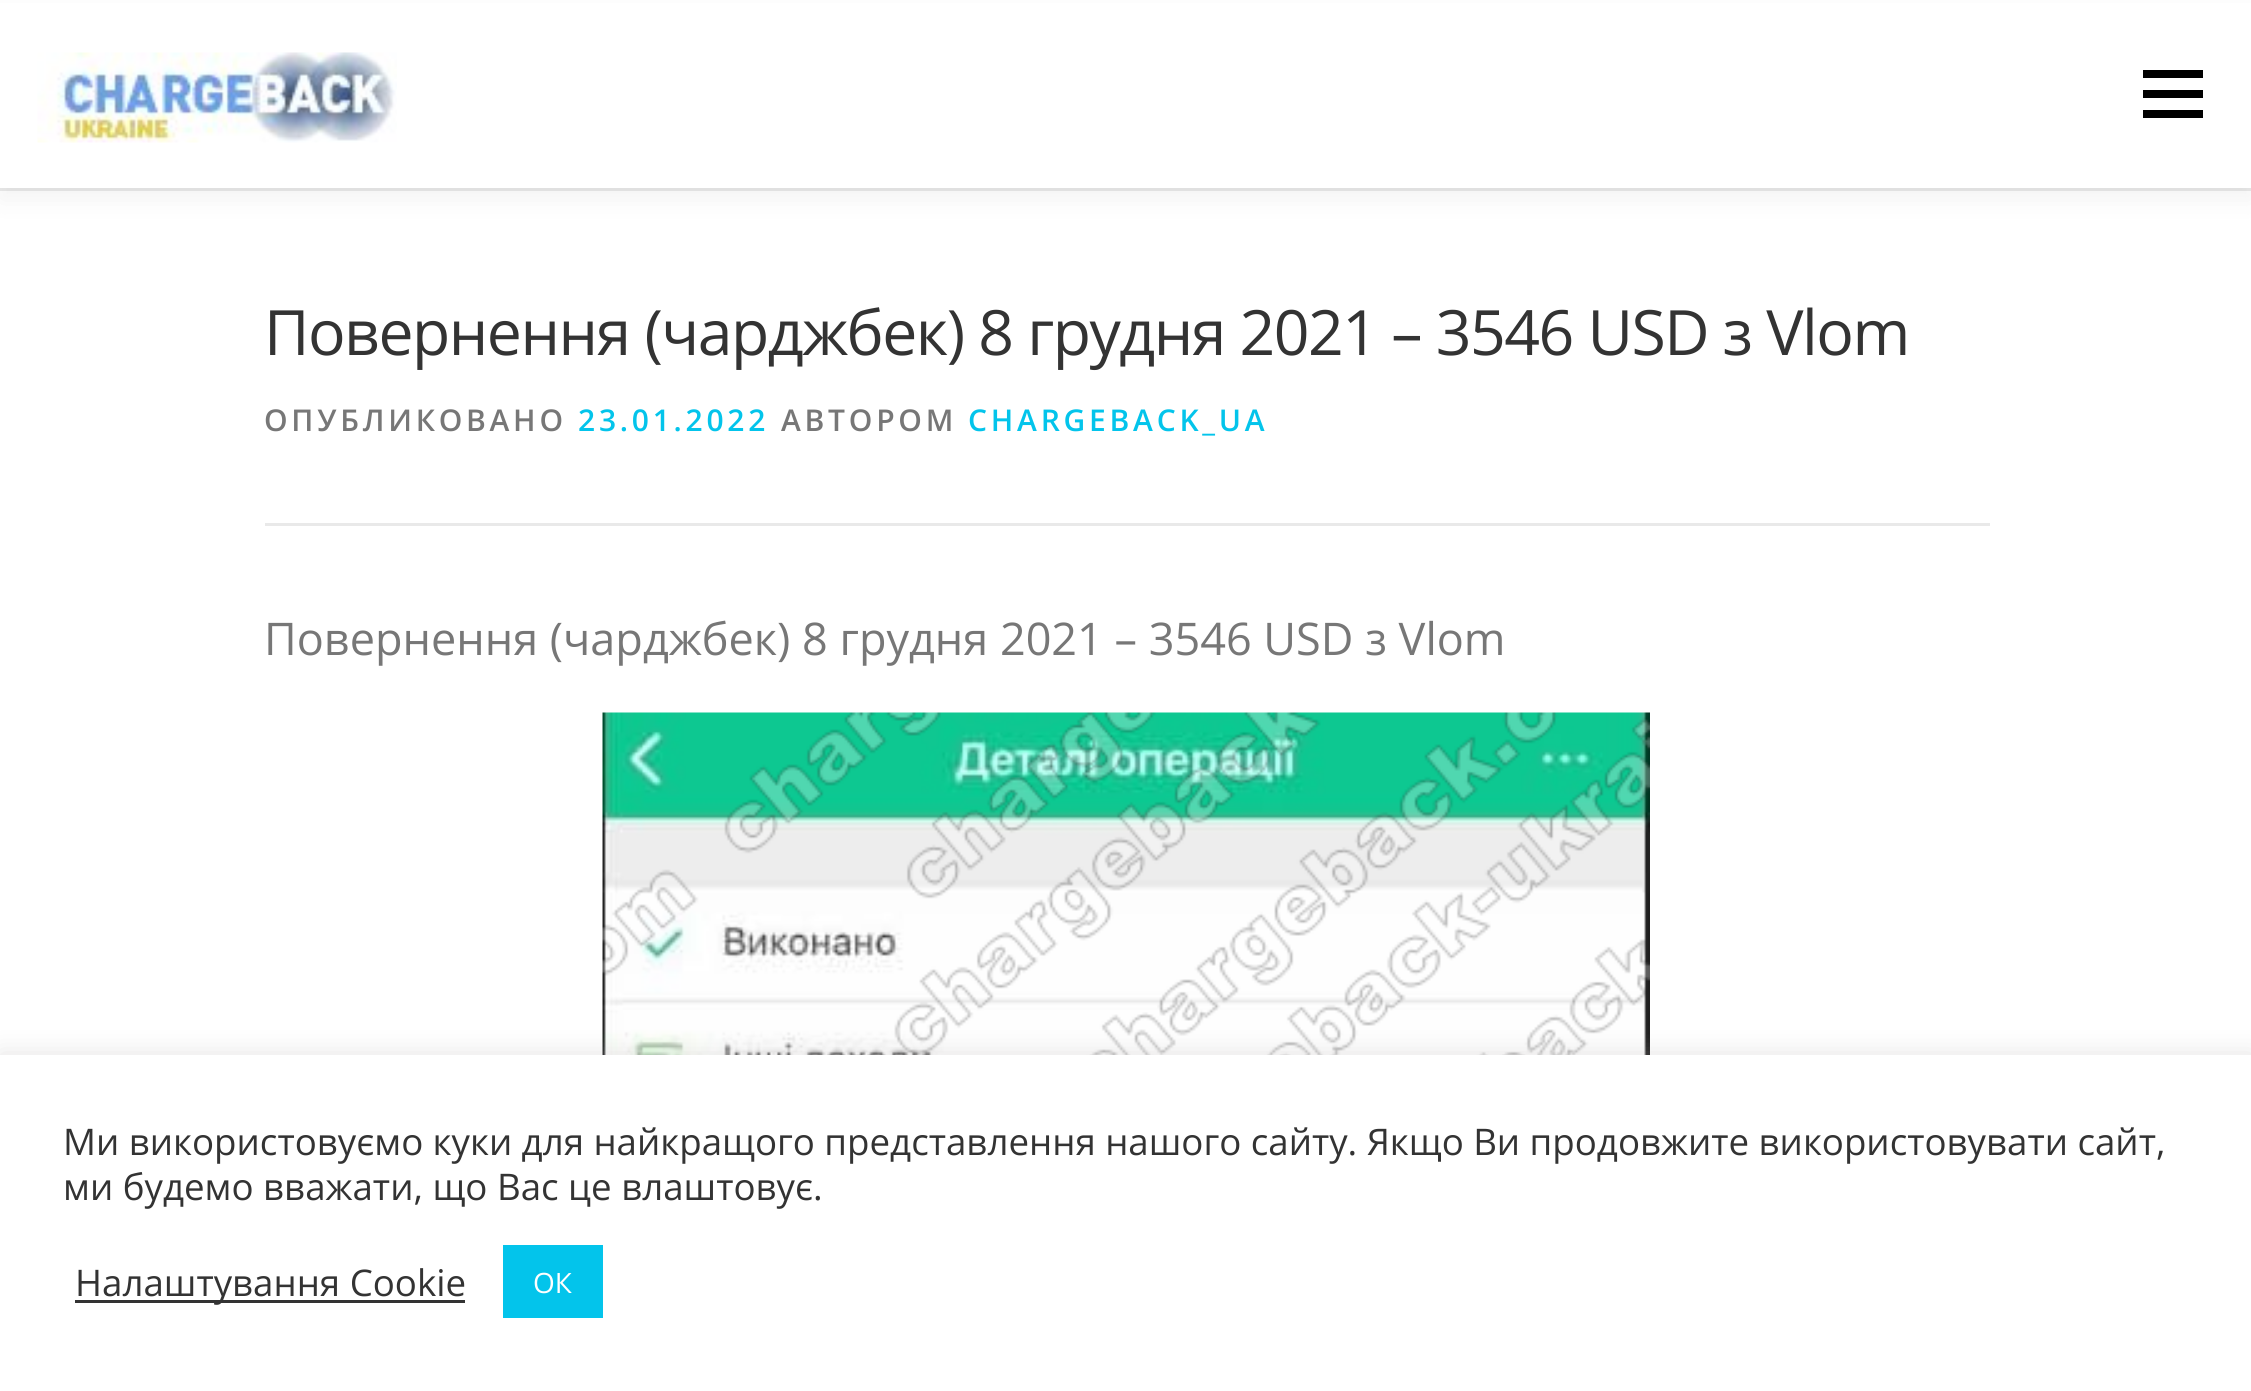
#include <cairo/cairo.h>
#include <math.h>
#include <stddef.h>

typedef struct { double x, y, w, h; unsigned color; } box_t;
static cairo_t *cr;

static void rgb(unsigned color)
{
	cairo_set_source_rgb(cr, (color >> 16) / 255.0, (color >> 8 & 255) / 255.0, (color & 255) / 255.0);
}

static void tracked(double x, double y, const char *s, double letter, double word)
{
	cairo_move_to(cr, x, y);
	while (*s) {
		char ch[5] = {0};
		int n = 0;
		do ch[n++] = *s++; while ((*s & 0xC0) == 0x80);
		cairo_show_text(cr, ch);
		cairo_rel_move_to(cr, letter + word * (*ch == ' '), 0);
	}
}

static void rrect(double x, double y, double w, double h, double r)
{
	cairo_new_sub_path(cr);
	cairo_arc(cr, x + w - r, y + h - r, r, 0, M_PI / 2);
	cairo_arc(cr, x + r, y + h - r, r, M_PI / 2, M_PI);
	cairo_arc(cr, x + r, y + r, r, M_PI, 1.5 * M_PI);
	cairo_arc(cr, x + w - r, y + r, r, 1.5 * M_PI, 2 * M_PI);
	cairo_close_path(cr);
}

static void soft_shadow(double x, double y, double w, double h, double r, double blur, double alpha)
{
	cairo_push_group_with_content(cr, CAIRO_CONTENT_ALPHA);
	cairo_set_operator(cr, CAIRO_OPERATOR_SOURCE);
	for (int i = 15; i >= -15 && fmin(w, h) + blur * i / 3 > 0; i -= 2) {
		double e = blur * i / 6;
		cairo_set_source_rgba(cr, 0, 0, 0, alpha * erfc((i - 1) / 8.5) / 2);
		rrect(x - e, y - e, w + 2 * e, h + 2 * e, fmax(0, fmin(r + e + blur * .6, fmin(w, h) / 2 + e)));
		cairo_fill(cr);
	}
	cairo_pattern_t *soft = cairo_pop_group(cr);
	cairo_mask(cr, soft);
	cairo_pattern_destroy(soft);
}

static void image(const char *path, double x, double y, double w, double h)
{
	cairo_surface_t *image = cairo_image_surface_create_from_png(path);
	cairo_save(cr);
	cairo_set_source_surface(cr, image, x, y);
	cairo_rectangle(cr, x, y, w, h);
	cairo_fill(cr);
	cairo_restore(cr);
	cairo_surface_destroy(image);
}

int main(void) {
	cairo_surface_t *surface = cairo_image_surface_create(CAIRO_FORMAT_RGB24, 2251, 1391);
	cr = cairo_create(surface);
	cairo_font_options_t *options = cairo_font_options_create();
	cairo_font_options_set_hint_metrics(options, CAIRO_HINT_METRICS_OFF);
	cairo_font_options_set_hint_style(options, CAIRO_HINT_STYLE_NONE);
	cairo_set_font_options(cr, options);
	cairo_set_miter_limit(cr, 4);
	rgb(0xffffff);
	cairo_paint(cr);
	rgb(0xe9e9e9);
	cairo_rectangle(cr, 0, 188, 2251, 3);
	cairo_fill(cr);
	rgb(0x323232);
	soft_shadow(0, 13, 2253, 187, 0, 12.5, 0.06);
	rgb(0xffffff);
	cairo_rectangle(cr, 0, 3, 2251, 185);
	cairo_fill(cr);
	image("img/1.png", 37, 52, 360, 91);
	{
		static const box_t items[] = {
			{2143, 90, 60, 8, 0x000000},
			{2143, 70, 60, 8, 0x000000},
			{2143, 110, 60, 8, 0x000000},
			{265, 523, 1725, 3, 0xe9e9e9},
		};
		for (size_t i = 0; i < sizeof items / sizeof *items; i++) {
			rgb(items[i].color);
			cairo_rectangle(cr, items[i].x, items[i].y, items[i].w, items[i].h);
			cairo_fill(cr);
		}
	}
	image("img/2.png", 602, 712, 1048, 343);
	rgb(0xacabab);
	soft_shadow(0, 1053, 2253, 337, 0, 12.5, 0.3);
	{
		static const box_t items[] = {
			{0, 1055, 2251, 336, 0xffffff},
			{75, 1300, 390, 3, 0x333333},
			{503, 1245, 100, 73, 0x03c4eb},
		};
		for (size_t i = 0; i < sizeof items / sizeof *items; i++) {
			rgb(items[i].color);
			cairo_rectangle(cr, items[i].x, items[i].y, items[i].w, items[i].h);
			cairo_fill(cr);
		}
	}
	cairo_select_font_face(cr, "Open Sans", CAIRO_FONT_SLANT_NORMAL, CAIRO_FONT_WEIGHT_NORMAL);
	cairo_set_font_size(cr, 62.5);
	rgb(0x333333);
	tracked(264, 355, "Повернення (чарджбек) 8 грудня 2021 – 3546 USD з Vlom", -1.5, 0);
	cairo_select_font_face(cr, "Open Sans SemiBold", CAIRO_FONT_SLANT_NORMAL, CAIRO_FONT_WEIGHT_NORMAL);
	cairo_set_font_size(cr, 30);
	rgb(0x777777);
	tracked(264, 431, "ОПУБЛИКОВАНО", 3.75, 0);
	rgb(0x03c4eb);
	tracked(578, 431, "23.01.2022", 3.75, 0);
	rgb(0x777777);
	tracked(781, 431, "АВТОРОМ", 3.75, 0);
	rgb(0x03c4eb);
	tracked(968, 431, "CHARGEBACK_UA", 3.75, 0);
	cairo_select_font_face(cr, "Open Sans", CAIRO_FONT_SLANT_NORMAL, CAIRO_FONT_WEIGHT_NORMAL);
	cairo_set_font_size(cr, 45);
	rgb(0x777777);
	cairo_move_to(cr, 264, 655);
	cairo_show_text(cr, "Повернення (чарджбек) 8 грудня 2021 – 3546 USD з Vlom");
	cairo_set_font_size(cr, 36.67);
	rgb(0x333333);
	tracked(63, 1155, "Ми використовуємо куки для найкращого представлення нашого сайту. Якщо Ви продовжите використовувати сайт,", 0, -0.1);
	cairo_move_to(cr, 63, 1200);
	cairo_show_text(cr, "ми будемо вважати, що Вас це влаштовує.");
	cairo_move_to(cr, 75, 1296);
	cairo_show_text(cr, "Налаштування Cookie");
	cairo_set_font_size(cr, 28);
	rgb(0xffffff);
	cairo_move_to(cr, 533, 1293);
	cairo_show_text(cr, "ОК");
	cairo_surface_write_to_png(surface, "page.png");
	cairo_font_options_destroy(options);
	cairo_destroy(cr);
	cairo_surface_destroy(surface);
	return 0;
}
